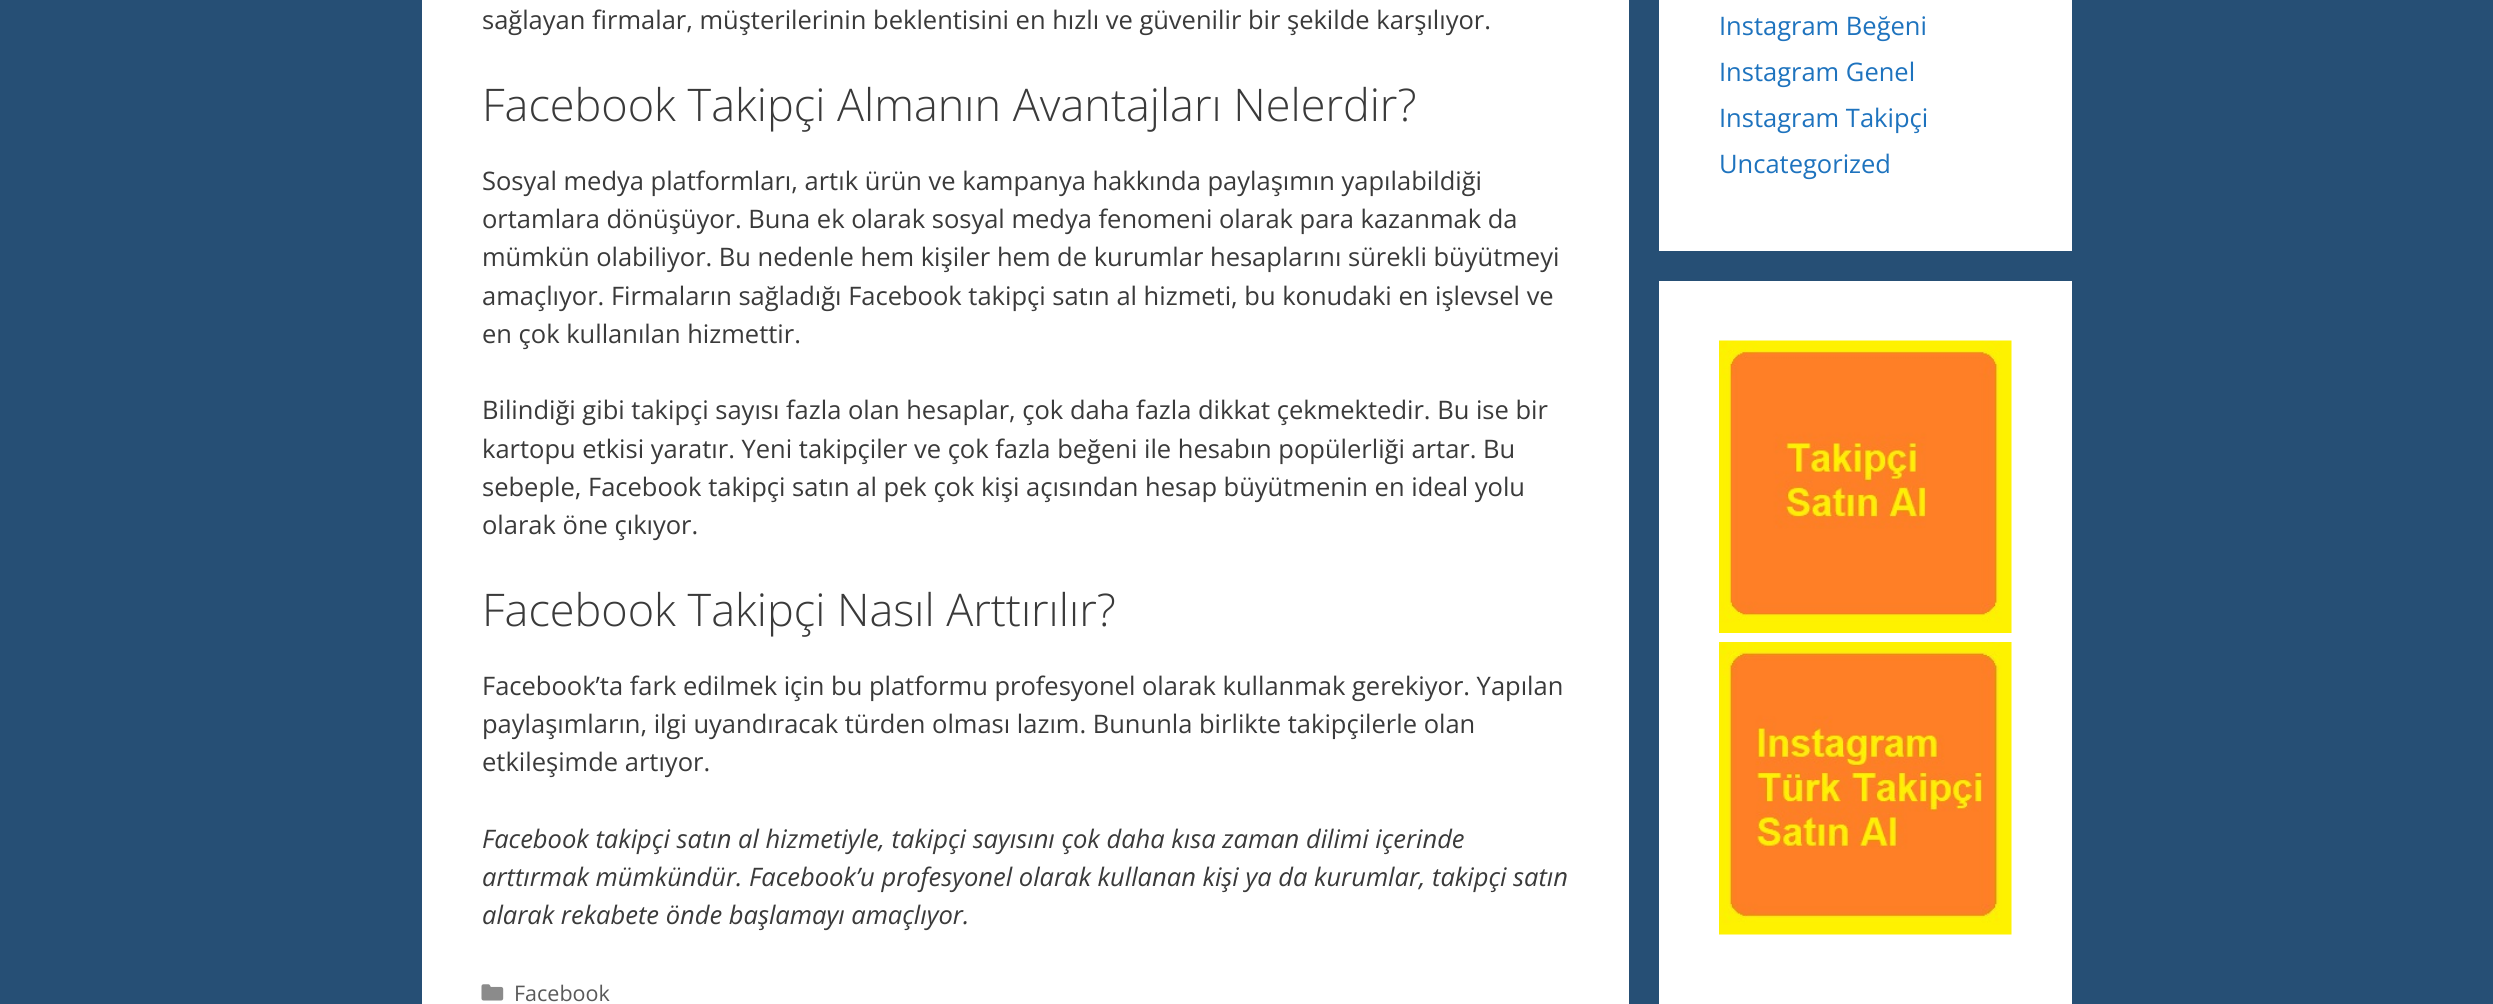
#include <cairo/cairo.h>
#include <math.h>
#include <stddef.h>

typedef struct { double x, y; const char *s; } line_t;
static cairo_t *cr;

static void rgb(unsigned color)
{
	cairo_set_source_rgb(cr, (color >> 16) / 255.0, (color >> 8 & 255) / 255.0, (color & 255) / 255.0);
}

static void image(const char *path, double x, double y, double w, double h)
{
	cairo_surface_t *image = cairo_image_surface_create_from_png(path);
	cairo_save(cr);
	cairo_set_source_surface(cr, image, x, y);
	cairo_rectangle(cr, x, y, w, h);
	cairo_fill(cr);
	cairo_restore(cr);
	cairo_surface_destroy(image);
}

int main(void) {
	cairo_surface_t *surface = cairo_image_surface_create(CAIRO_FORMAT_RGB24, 2493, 1004);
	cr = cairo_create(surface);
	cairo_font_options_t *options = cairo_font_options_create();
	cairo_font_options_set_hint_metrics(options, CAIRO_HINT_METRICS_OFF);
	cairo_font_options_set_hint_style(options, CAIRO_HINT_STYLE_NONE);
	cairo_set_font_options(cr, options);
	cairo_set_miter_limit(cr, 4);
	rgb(0x264f75);
	cairo_paint(cr);
	rgb(0xffffff);
	cairo_rectangle(cr, 422, 0, 1207, 1004);
	cairo_fill(cr);
	image("img/1.png", 481, 984, 23, 17);
	cairo_rectangle(cr, 1659, 0, 413, 251);
	cairo_fill(cr);
	cairo_rectangle(cr, 1659, 281, 413, 723);
	cairo_fill(cr);
	image("img/2.png", 1719, 340, 293, 293);
	image("img/3.png", 1719, 642, 293, 293);
	cairo_select_font_face(cr, "Open Sans", CAIRO_FONT_SLANT_NORMAL, CAIRO_FONT_WEIGHT_NORMAL);
	cairo_set_font_size(cr, 25.5);
	rgb(0x3a3a3a);
	cairo_move_to(cr, 482, 29);
	cairo_show_text(cr, "sağlayan firmalar, müşterilerinin beklentisini en hızlı ve güvenilir bir şekilde karşılıyor.");
	cairo_select_font_face(cr, "Open Sans Light", CAIRO_FONT_SLANT_NORMAL, CAIRO_FONT_WEIGHT_NORMAL);
	cairo_set_font_size(cr, 45);
	cairo_move_to(cr, 482, 121);
	cairo_show_text(cr, "Facebook Takipçi Almanın Avantajları Nelerdir?");
	cairo_select_font_face(cr, "Open Sans", CAIRO_FONT_SLANT_NORMAL, CAIRO_FONT_WEIGHT_NORMAL);
	cairo_set_font_size(cr, 25.5);
	{
		static const line_t items[] = {
			{482, 190, "Sosyal medya platformları, artık ürün ve kampanya hakkında paylaşımın yapılabildiği"},
			{482, 228, "ortamlara dönüşüyor. Buna ek olarak sosyal medya fenomeni olarak para kazanmak da"},
			{482, 266, "mümkün olabiliyor. Bu nedenle hem kişiler hem de kurumlar hesaplarını sürekli büyütmeyi"},
			{482, 305, "amaçlıyor. Firmaların sağladığı Facebook takipçi satın al hizmeti, bu konudaki en işlevsel ve"},
			{482, 343, "en çok kullanılan hizmettir."},
			{482, 419, "Bilindiği gibi takipçi sayısı fazla olan hesaplar, çok daha fazla dikkat çekmektedir. Bu ise bir"},
			{482, 458, "kartopu etkisi yaratır. Yeni takipçiler ve çok fazla beğeni ile hesabın popülerliği artar. Bu"},
			{482, 496, "sebeple, Facebook takipçi satın al pek çok kişi açısından hesap büyütmenin en ideal yolu"},
			{482, 534, "olarak öne çıkıyor."},
		};
		for (size_t i = 0; i < sizeof items / sizeof *items; i++) {
			cairo_move_to(cr, items[i].x, items[i].y);
			cairo_show_text(cr, items[i].s);
		}
	}
	cairo_select_font_face(cr, "Open Sans Light", CAIRO_FONT_SLANT_NORMAL, CAIRO_FONT_WEIGHT_NORMAL);
	cairo_set_font_size(cr, 45);
	cairo_move_to(cr, 482, 626);
	cairo_show_text(cr, "Facebook Takipçi Nasıl Arttırılır?");
	cairo_select_font_face(cr, "Open Sans", CAIRO_FONT_SLANT_NORMAL, CAIRO_FONT_WEIGHT_NORMAL);
	cairo_set_font_size(cr, 25.5);
	{
		static const line_t items[] = {
			{482, 695, "Facebook’ta fark edilmek için bu platformu profesyonel olarak kullanmak gerekiyor. Yapılan"},
			{482, 733, "paylaşımların, ilgi uyandıracak türden olması lazım. Bununla birlikte takipçilerle olan"},
			{482, 771, "etkileşimde artıyor."},
		};
		for (size_t i = 0; i < sizeof items / sizeof *items; i++) {
			cairo_move_to(cr, items[i].x, items[i].y);
			cairo_show_text(cr, items[i].s);
		}
	}
	cairo_select_font_face(cr, "Open Sans", CAIRO_FONT_SLANT_ITALIC, CAIRO_FONT_WEIGHT_NORMAL);
	{
		static const line_t items[] = {
			{482, 848, "Facebook takipçi satın al hizmetiyle, takipçi sayısını çok daha kısa zaman dilimi içerinde"},
			{482, 886, "arttırmak mümkündür. Facebook’u profesyonel olarak kullanan kişi ya da kurumlar, takipçi satın"},
			{482, 924, "alarak rekabete önde başlamayı amaçlıyor."},
		};
		for (size_t i = 0; i < sizeof items / sizeof *items; i++) {
			cairo_move_to(cr, items[i].x, items[i].y);
			cairo_show_text(cr, items[i].s);
		}
	}
	cairo_select_font_face(cr, "Open Sans", CAIRO_FONT_SLANT_NORMAL, CAIRO_FONT_WEIGHT_NORMAL);
	cairo_set_font_size(cr, 21.5);
	rgb(0x595959);
	cairo_move_to(cr, 514, 1001);
	cairo_show_text(cr, "Facebook");
	cairo_set_font_size(cr, 25.5);
	rgb(0x1e73be);
	{
		static const line_t items[] = {
			{1719, 35, "Instagram Beğeni"},
			{1719, 81, "Instagram Genel"},
			{1719, 127, "Instagram Takipçi"},
			{1719, 173, "Uncategorized"},
		};
		for (size_t i = 0; i < sizeof items / sizeof *items; i++) {
			cairo_move_to(cr, items[i].x, items[i].y);
			cairo_show_text(cr, items[i].s);
		}
	}
	cairo_surface_write_to_png(surface, "page.png");
	cairo_font_options_destroy(options);
	cairo_destroy(cr);
	cairo_surface_destroy(surface);
	return 0;
}
